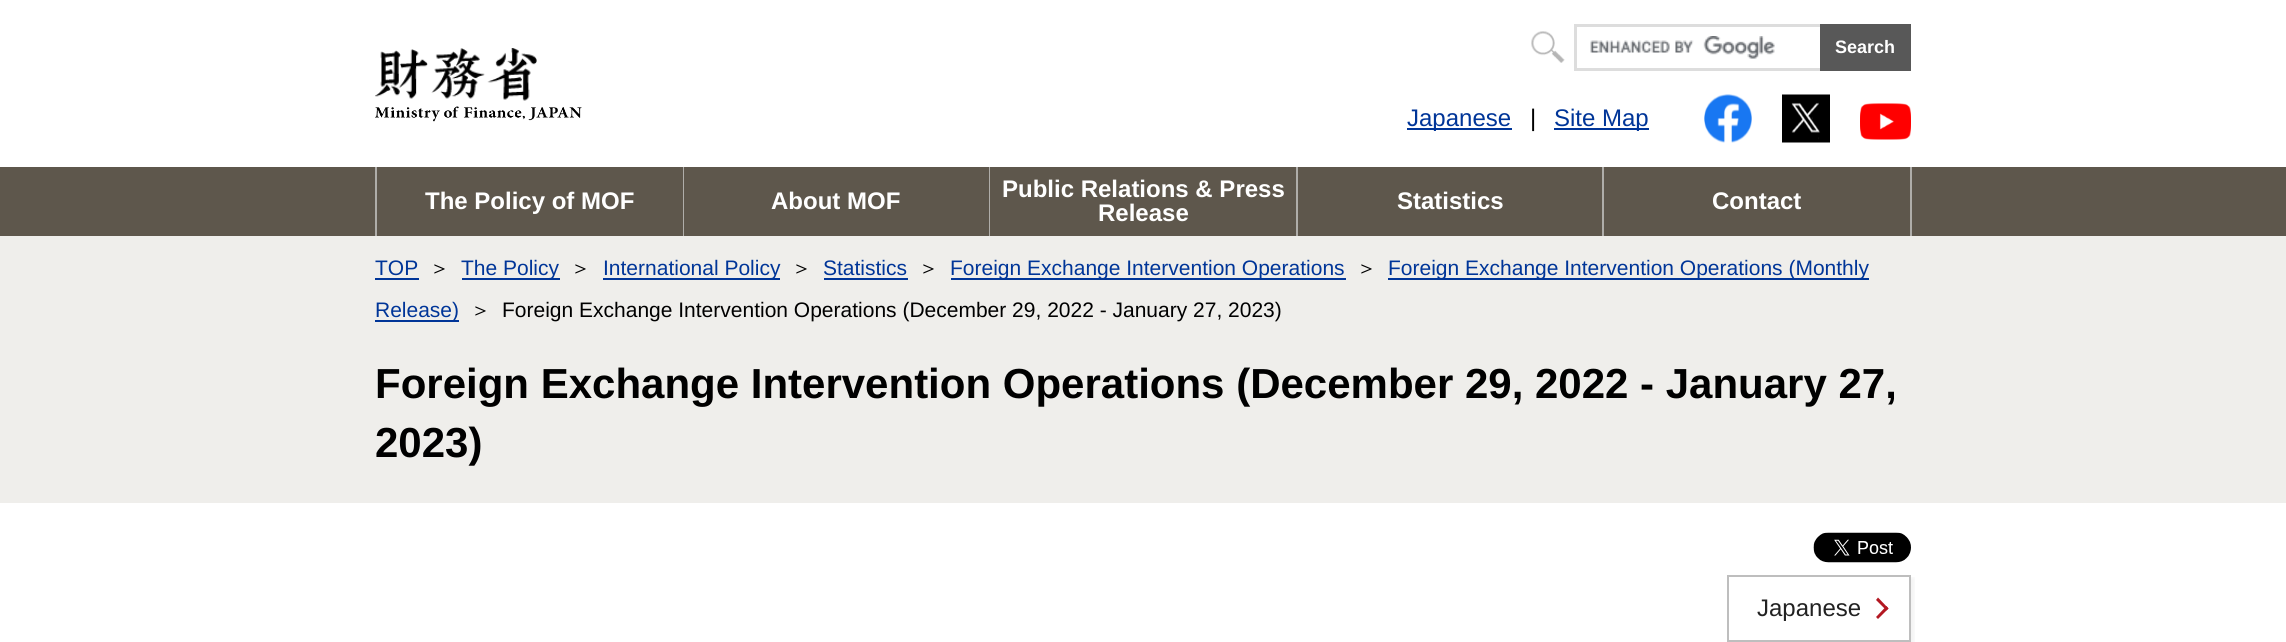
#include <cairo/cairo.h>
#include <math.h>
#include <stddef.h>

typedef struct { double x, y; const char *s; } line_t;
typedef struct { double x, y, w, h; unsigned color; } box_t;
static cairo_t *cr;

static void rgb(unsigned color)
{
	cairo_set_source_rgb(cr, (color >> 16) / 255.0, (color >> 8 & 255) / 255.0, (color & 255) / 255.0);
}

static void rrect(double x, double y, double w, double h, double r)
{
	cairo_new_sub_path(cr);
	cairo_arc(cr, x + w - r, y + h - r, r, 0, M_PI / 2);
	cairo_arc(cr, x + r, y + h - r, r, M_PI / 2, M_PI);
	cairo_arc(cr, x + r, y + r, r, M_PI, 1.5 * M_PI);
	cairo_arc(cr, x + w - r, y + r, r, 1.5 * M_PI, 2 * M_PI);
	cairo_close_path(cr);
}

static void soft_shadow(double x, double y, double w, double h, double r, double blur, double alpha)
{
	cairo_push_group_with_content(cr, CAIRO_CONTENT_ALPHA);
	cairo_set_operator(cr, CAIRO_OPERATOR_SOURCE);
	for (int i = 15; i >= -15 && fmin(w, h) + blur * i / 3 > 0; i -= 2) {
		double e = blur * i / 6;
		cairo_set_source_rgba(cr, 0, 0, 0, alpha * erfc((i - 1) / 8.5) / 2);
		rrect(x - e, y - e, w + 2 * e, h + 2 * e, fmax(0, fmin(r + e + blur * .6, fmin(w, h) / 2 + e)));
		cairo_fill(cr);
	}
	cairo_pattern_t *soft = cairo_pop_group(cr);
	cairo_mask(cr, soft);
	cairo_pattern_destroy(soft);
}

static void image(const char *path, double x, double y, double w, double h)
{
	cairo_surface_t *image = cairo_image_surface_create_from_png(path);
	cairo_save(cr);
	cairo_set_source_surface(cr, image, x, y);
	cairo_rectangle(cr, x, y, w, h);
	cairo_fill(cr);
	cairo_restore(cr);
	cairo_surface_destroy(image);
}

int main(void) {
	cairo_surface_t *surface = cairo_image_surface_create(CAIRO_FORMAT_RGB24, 2286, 642);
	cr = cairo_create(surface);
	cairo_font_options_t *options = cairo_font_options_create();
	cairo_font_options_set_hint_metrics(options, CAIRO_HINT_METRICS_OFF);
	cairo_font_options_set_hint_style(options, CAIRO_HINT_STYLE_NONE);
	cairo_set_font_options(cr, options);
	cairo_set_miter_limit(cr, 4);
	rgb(0xffffff);
	cairo_paint(cr);
	image("img/1.png", 1531, 31, 34, 32);
	image("img/2.png", 1590, 36, 185, 23);
	cairo_rectangle(cr, 1575.5, 25.5, 249, 44);
	rgb(0xdddddd);
	cairo_set_line_width(cr, 3);
	cairo_stroke(cr);
	rgb(0x585858);
	cairo_rectangle(cr, 1820, 24, 91, 47);
	cairo_fill(cr);
	image("img/3.png", 375, 48, 162, 53);
	image("img/4.png", 375, 106, 207, 16);
	rgb(0x003598);
	cairo_rectangle(cr, 1407, 128, 105, 2);
	cairo_fill(cr);
	cairo_rectangle(cr, 1554, 128, 95, 2);
	cairo_fill(cr);
	image("img/5.png", 1704, 94, 48, 49);
	image("img/6.png", 1782, 94, 48, 49);
	image("img/7.png", 1860, 103, 51, 37);
	{
		static const box_t items[] = {
			{0, 167, 2286, 69, 0x5e574c},
			{375, 167, 2, 69, 0xafada9},
			{683, 167, 1, 69, 0xafada9},
			{989, 167, 1, 69, 0xafada9},
			{1296, 167, 2, 69, 0xafada9},
			{1910, 167, 2, 69, 0xafada9},
			{1602, 167, 2, 69, 0xafada9},
			{0, 236, 2286, 267, 0xefeeeb},
			{375, 278, 44, 2, 0x003598},
			{462, 278, 98, 2, 0x003598},
			{603, 278, 177, 2, 0x003598},
			{824, 278, 84, 2, 0x003598},
			{951, 278, 395, 2, 0x003598},
			{1388, 278, 481, 2, 0x003598},
			{375, 320, 84, 2, 0x003598},
		};
		for (size_t i = 0; i < sizeof items / sizeof *items; i++) {
			rgb(items[i].color);
			cairo_rectangle(cr, items[i].x, items[i].y, items[i].w, items[i].h);
			cairo_fill(cr);
		}
	}
	image("img/8.png", 1813, 532, 98, 31);
	cairo_save(cr);
	cairo_rectangle(cr, 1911, 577, 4, 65);
	cairo_clip(cr);
	rgb(0x000000);
	soft_shadow(1730, 578, 184, 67, 0, 3, 0.06);
	cairo_restore(cr);
	cairo_rectangle(cr, 1728, 576, 182, 65);
	rgb(0xbebebe);
	cairo_set_line_width(cr, 2);
	cairo_stroke(cr);
	rgb(0xb31822);
	cairo_new_path(cr);
	cairo_move_to(cr, 1878, 597.5);
	cairo_line_to(cr, 1888.5, 608.5);
	cairo_line_to(cr, 1886.5, 610.5);
	cairo_line_to(cr, 1876, 600);
	cairo_close_path(cr);
	cairo_fill(cr);
	cairo_new_path(cr);
	cairo_move_to(cr, 1886.5, 606);
	cairo_line_to(cr, 1888.5, 608.5);
	cairo_line_to(cr, 1878, 619);
	cairo_line_to(cr, 1876, 617);
	cairo_close_path(cr);
	cairo_fill(cr);
	cairo_select_font_face(cr, "Liberation Sans", CAIRO_FONT_SLANT_NORMAL, CAIRO_FONT_WEIGHT_BOLD);
	cairo_set_font_size(cr, 18);
	rgb(0xffffff);
	cairo_move_to(cr, 1835, 53);
	cairo_show_text(cr, "Search");
	cairo_select_font_face(cr, "Liberation Sans", CAIRO_FONT_SLANT_NORMAL, CAIRO_FONT_WEIGHT_NORMAL);
	cairo_set_font_size(cr, 24);
	rgb(0x003598);
	cairo_move_to(cr, 1407, 126);
	cairo_show_text(cr, "Japanese");
	rgb(0x000000);
	cairo_move_to(cr, 1530, 126);
	cairo_show_text(cr, "|");
	rgb(0x003598);
	cairo_move_to(cr, 1554, 126);
	cairo_show_text(cr, "Site Map");
	cairo_select_font_face(cr, "Liberation Sans", CAIRO_FONT_SLANT_NORMAL, CAIRO_FONT_WEIGHT_BOLD);
	rgb(0xffffff);
	{
		static const line_t items[] = {
			{425, 209, "The Policy of MOF"},
			{771, 209, "About MOF"},
			{1002, 197, "Public Relations & Press"},
			{1098, 221, "Release"},
			{1397, 209, "Statistics"},
			{1712, 209, "Contact"},
		};
		for (size_t i = 0; i < sizeof items / sizeof *items; i++) {
			cairo_move_to(cr, items[i].x, items[i].y);
			cairo_show_text(cr, items[i].s);
		}
	}
	cairo_select_font_face(cr, "Liberation Sans", CAIRO_FONT_SLANT_NORMAL, CAIRO_FONT_WEIGHT_NORMAL);
	cairo_set_font_size(cr, 21);
	rgb(0x003598);
	cairo_move_to(cr, 375, 275);
	cairo_show_text(cr, "TOP");
	cairo_select_font_face(cr, "WenQuanYi Zen Hei Medium", CAIRO_FONT_SLANT_NORMAL, CAIRO_FONT_WEIGHT_NORMAL);
	rgb(0x000000);
	cairo_move_to(cr, 429, 275);
	cairo_show_text(cr, "＞");
	cairo_select_font_face(cr, "Liberation Sans", CAIRO_FONT_SLANT_NORMAL, CAIRO_FONT_WEIGHT_NORMAL);
	rgb(0x003598);
	cairo_move_to(cr, 461, 275);
	cairo_show_text(cr, "The Policy");
	cairo_select_font_face(cr, "WenQuanYi Zen Hei Medium", CAIRO_FONT_SLANT_NORMAL, CAIRO_FONT_WEIGHT_NORMAL);
	rgb(0x000000);
	cairo_move_to(cr, 570, 275);
	cairo_show_text(cr, "＞");
	cairo_select_font_face(cr, "Liberation Sans", CAIRO_FONT_SLANT_NORMAL, CAIRO_FONT_WEIGHT_NORMAL);
	rgb(0x003598);
	cairo_move_to(cr, 603, 275);
	cairo_show_text(cr, "International Policy");
	cairo_select_font_face(cr, "WenQuanYi Zen Hei Medium", CAIRO_FONT_SLANT_NORMAL, CAIRO_FONT_WEIGHT_NORMAL);
	rgb(0x000000);
	cairo_move_to(cr, 791, 275);
	cairo_show_text(cr, "＞");
	cairo_select_font_face(cr, "Liberation Sans", CAIRO_FONT_SLANT_NORMAL, CAIRO_FONT_WEIGHT_NORMAL);
	rgb(0x003598);
	cairo_move_to(cr, 823, 275);
	cairo_show_text(cr, "Statistics");
	cairo_select_font_face(cr, "WenQuanYi Zen Hei Medium", CAIRO_FONT_SLANT_NORMAL, CAIRO_FONT_WEIGHT_NORMAL);
	rgb(0x000000);
	cairo_move_to(cr, 918, 275);
	cairo_show_text(cr, "＞");
	cairo_select_font_face(cr, "Liberation Sans", CAIRO_FONT_SLANT_NORMAL, CAIRO_FONT_WEIGHT_NORMAL);
	rgb(0x003598);
	cairo_move_to(cr, 950, 275);
	cairo_show_text(cr, "Foreign Exchange Intervention Operations");
	cairo_select_font_face(cr, "WenQuanYi Zen Hei Medium", CAIRO_FONT_SLANT_NORMAL, CAIRO_FONT_WEIGHT_NORMAL);
	rgb(0x000000);
	cairo_move_to(cr, 1356, 275);
	cairo_show_text(cr, "＞");
	cairo_select_font_face(cr, "Liberation Sans", CAIRO_FONT_SLANT_NORMAL, CAIRO_FONT_WEIGHT_NORMAL);
	rgb(0x003598);
	cairo_move_to(cr, 1388, 275);
	cairo_show_text(cr, "Foreign Exchange Intervention Operations (Monthly");
	cairo_move_to(cr, 375, 317);
	cairo_show_text(cr, "Release)");
	cairo_select_font_face(cr, "WenQuanYi Zen Hei Medium", CAIRO_FONT_SLANT_NORMAL, CAIRO_FONT_WEIGHT_NORMAL);
	rgb(0x000000);
	cairo_move_to(cr, 470, 317);
	cairo_show_text(cr, "＞");
	cairo_select_font_face(cr, "Liberation Sans", CAIRO_FONT_SLANT_NORMAL, CAIRO_FONT_WEIGHT_NORMAL);
	cairo_move_to(cr, 502, 317);
	cairo_show_text(cr, "Foreign Exchange Intervention Operations (December 29, 2022 - January 27, 2023)");
	cairo_select_font_face(cr, "Liberation Sans", CAIRO_FONT_SLANT_NORMAL, CAIRO_FONT_WEIGHT_BOLD);
	cairo_set_font_size(cr, 42);
	cairo_move_to(cr, 375, 398);
	cairo_show_text(cr, "Foreign Exchange Intervention Operations (December 29, 2022 - January 27,");
	cairo_move_to(cr, 375, 457);
	cairo_show_text(cr, "2023)");
	cairo_select_font_face(cr, "Liberation Sans", CAIRO_FONT_SLANT_NORMAL, CAIRO_FONT_WEIGHT_NORMAL);
	cairo_set_font_size(cr, 24);
	rgb(0x222222);
	cairo_move_to(cr, 1757, 616);
	cairo_show_text(cr, "Japanese");
	cairo_surface_write_to_png(surface, "page.png");
	cairo_font_options_destroy(options);
	cairo_destroy(cr);
	cairo_surface_destroy(surface);
	return 0;
}
